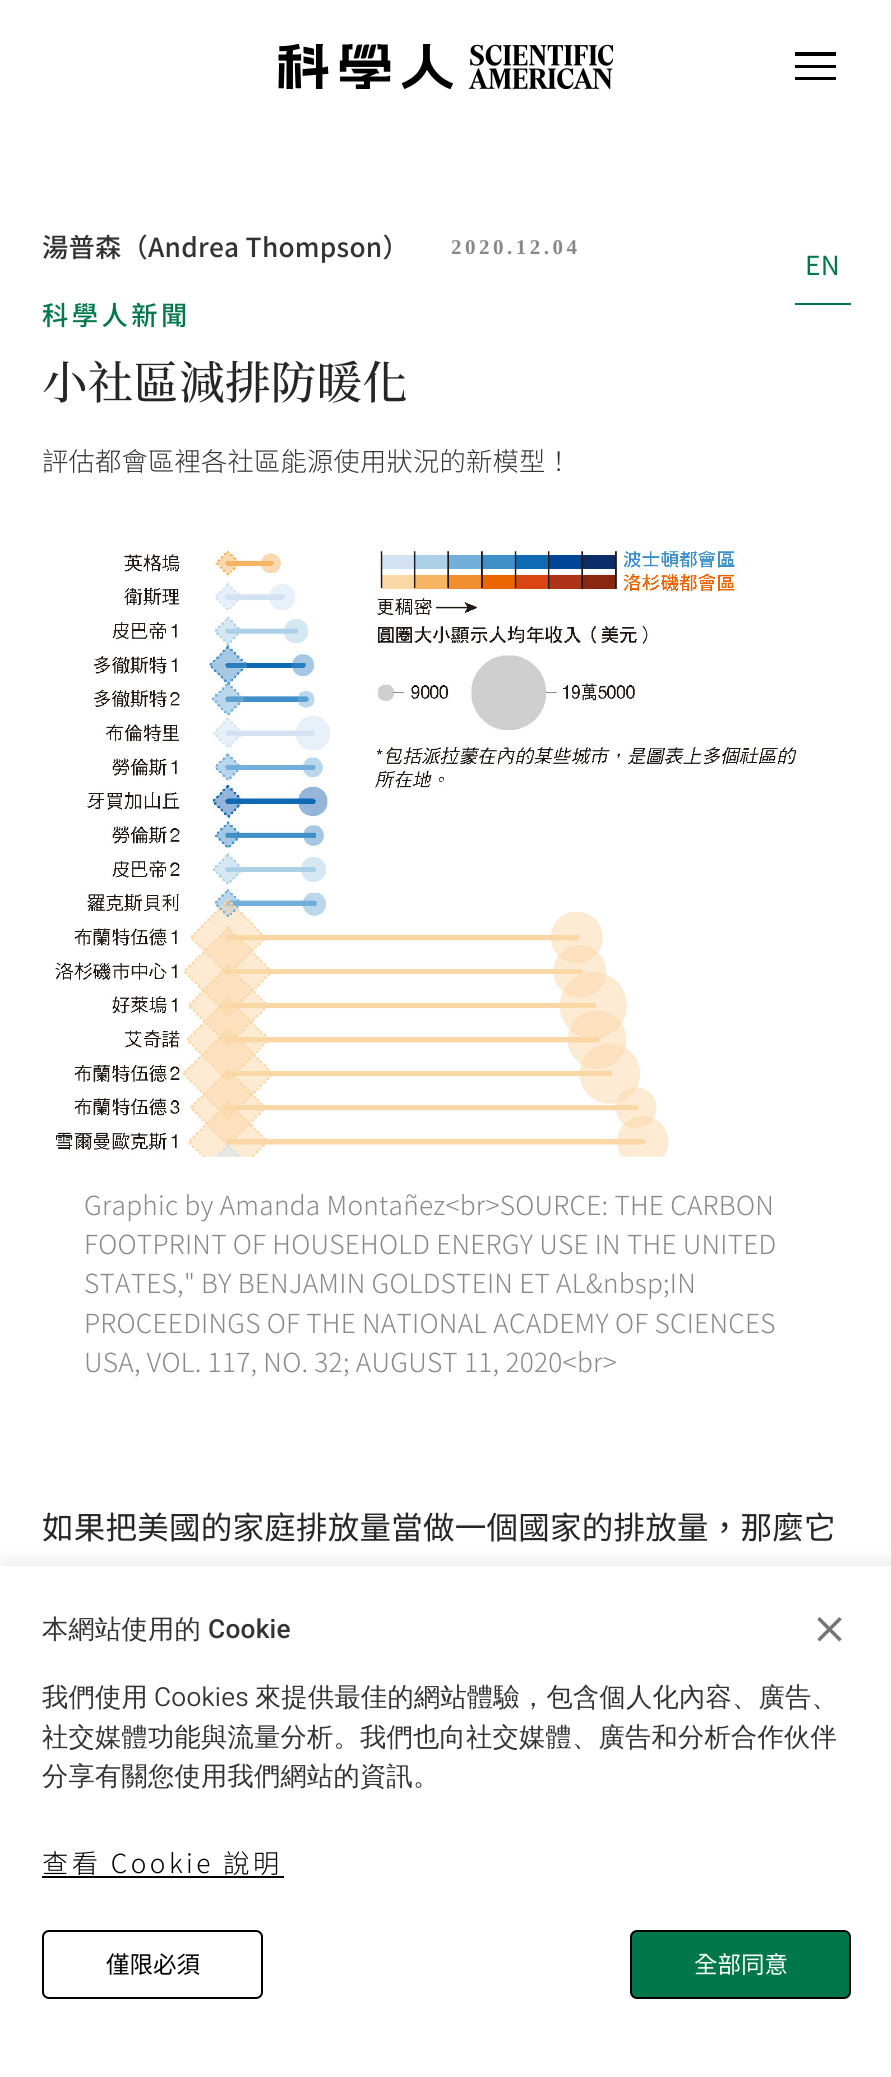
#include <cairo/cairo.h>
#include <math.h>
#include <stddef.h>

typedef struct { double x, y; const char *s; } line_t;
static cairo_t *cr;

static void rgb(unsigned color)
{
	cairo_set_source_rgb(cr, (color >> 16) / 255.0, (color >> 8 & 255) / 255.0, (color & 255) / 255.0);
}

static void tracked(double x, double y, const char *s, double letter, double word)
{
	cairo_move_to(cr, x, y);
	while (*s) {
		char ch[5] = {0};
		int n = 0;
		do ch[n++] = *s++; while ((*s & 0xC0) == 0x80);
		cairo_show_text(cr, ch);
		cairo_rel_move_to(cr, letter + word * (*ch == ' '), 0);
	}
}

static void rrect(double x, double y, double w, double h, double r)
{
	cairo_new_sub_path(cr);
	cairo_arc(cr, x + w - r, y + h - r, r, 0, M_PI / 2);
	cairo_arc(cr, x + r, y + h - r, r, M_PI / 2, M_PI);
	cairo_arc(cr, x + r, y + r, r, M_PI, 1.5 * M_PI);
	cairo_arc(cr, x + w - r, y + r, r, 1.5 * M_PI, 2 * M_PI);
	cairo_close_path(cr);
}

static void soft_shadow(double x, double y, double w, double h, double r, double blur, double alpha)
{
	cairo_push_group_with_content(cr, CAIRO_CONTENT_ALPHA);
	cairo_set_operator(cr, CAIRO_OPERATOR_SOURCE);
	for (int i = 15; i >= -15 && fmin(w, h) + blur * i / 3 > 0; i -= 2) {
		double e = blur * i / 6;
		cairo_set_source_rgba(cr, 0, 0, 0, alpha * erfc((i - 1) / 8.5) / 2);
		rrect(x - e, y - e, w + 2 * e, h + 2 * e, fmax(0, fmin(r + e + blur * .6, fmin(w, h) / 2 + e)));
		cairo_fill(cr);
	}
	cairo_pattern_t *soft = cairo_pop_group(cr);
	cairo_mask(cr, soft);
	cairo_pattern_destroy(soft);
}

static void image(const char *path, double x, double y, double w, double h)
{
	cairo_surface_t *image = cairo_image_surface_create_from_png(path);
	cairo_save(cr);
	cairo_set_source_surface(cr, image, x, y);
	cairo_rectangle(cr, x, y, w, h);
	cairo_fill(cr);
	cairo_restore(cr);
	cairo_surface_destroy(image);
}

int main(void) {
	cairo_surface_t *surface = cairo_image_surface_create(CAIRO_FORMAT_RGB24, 891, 2077);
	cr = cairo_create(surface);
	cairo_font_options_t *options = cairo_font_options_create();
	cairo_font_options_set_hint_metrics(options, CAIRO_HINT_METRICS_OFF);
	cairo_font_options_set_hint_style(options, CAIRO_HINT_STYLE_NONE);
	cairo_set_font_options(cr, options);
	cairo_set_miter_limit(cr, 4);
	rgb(0xffffff);
	cairo_paint(cr);
	image("img/1.png", 278, 44, 336, 45);
	cairo_save(cr);
	cairo_rectangle(cr, 795, 46, 42, 42);
	cairo_clip(cr);
	rgb(0x000000);
	cairo_set_fill_rule(cr, CAIRO_FILL_RULE_EVEN_ODD);
	cairo_new_path(cr);
	cairo_move_to(cr, 836, 52);
	cairo_line_to(cr, 836, 56);
	cairo_line_to(cr, 794, 56);
	cairo_line_to(cr, 794, 52);
	cairo_close_path(cr);
	cairo_move_to(cr, 836, 65);
	cairo_line_to(cr, 836, 68);
	cairo_line_to(cr, 794, 68);
	cairo_line_to(cr, 794, 65);
	cairo_close_path(cr);
	cairo_move_to(cr, 836, 77);
	cairo_line_to(cr, 836, 80);
	cairo_line_to(cr, 794, 80);
	cairo_line_to(cr, 794, 77);
	cairo_close_path(cr);
	cairo_fill(cr);
	cairo_restore(cr);
	rgb(0x00774b);
	cairo_rectangle(cr, 795, 303, 56, 2);
	cairo_fill(cr);
	image("img/2.png", 52, 551, 744, 606);
	rgb(0x000000);
	soft_shadow(4, 1563, 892, 511, 0, 9, 0.1);
	rgb(0xffffff);
	cairo_rectangle(cr, 0, 1566, 891, 511);
	cairo_fill(cr);
	image("img/3.png", 817, 1617, 25, 25);
	rgb(0x000000);
	cairo_rectangle(cr, 42, 1876, 242, 2);
	cairo_fill(cr);
	rrect(43, 1931, 219, 67, 6);
	cairo_stroke(cr);
	rgb(0x00774b);
	rrect(631, 1931, 219, 67, 6);
	cairo_fill_preserve(cr);
	rgb(0x000000);
	cairo_stroke(cr);
	cairo_select_font_face(cr, "Noto Sans TC Medium", CAIRO_FONT_SLANT_NORMAL, CAIRO_FONT_WEIGHT_NORMAL);
	cairo_set_font_size(cr, 26.25);
	rgb(0x333333);
	tracked(42, 257, "湯普森（Andrea Thompson）", 0.25, 0);
	cairo_select_font_face(cr, "Liberation Serif", CAIRO_FONT_SLANT_NORMAL, CAIRO_FONT_WEIGHT_BOLD);
	cairo_set_font_size(cr, 21);
	rgb(0x888888);
	tracked(451, 254, "2020.12.04", 3.5, 0);
	cairo_select_font_face(cr, "Noto Sans TC", CAIRO_FONT_SLANT_NORMAL, CAIRO_FONT_WEIGHT_NORMAL);
	cairo_set_font_size(cr, 26.25);
	rgb(0x00774b);
	tracked(805, 275, "EN", 0.25, 0);
	cairo_select_font_face(cr, "Noto Sans TC Medium", CAIRO_FONT_SLANT_NORMAL, CAIRO_FONT_WEIGHT_NORMAL);
	tracked(42, 325, "科學人新聞", 3.5, 0);
	cairo_select_font_face(cr, "Noto Serif TC Medium", CAIRO_FONT_SLANT_NORMAL, CAIRO_FONT_WEIGHT_NORMAL);
	cairo_set_font_size(cr, 45.5);
	rgb(0x262626);
	tracked(42, 399, "小社區減排防暖化", 0.25, 0);
	cairo_select_font_face(cr, "Noto Sans TC Light", CAIRO_FONT_SLANT_NORMAL, CAIRO_FONT_WEIGHT_NORMAL);
	cairo_set_font_size(cr, 26.25);
	rgb(0x333333);
	tracked(42, 471, "評估都會區裡各社區能源使用狀況的新模型！", 0.25, 0);
	rgb(0x888888);
	{
		static const line_t items[] = {
			{84, 1215, "Graphic by Amanda Montañez<br>SOURCE: THE CARBON"},
			{84, 1254, "FOOTPRINT OF HOUSEHOLD ENERGY USE IN THE UNITED"},
			{84, 1293, "STATES,\" BY BENJAMIN GOLDSTEIN ET AL&nbsp;IN"},
			{84, 1333, "PROCEEDINGS OF THE NATIONAL ACADEMY OF SCIENCES"},
			{84, 1372, "USA, VOL. 117, NO. 32; AUGUST 11, 2020<br>"},
		};
		for (size_t i = 0; i < sizeof items / sizeof *items; i++) {
			tracked(items[i].x, items[i].y, items[i].s, 0.25, 0);
		}
	}
	cairo_select_font_face(cr, "Noto Sans TC", CAIRO_FONT_SLANT_NORMAL, CAIRO_FONT_WEIGHT_NORMAL);
	cairo_set_font_size(cr, 31.5);
	rgb(0x262626);
	tracked(42, 1539, "如果把美國的家庭排放量當做一個國家的排放量，那麼它", 0.25, 0);
	cairo_select_font_face(cr, "WenQuanYi Zen Hei Medium", CAIRO_FONT_SLANT_NORMAL, CAIRO_FONT_WEIGHT_NORMAL);
	cairo_set_font_size(cr, 26.25);
	rgb(0x333333);
	tracked(42, 1638, "本網站使用的", 0.25, 0);
	cairo_select_font_face(cr, "Roboto Medium", CAIRO_FONT_SLANT_NORMAL, CAIRO_FONT_WEIGHT_NORMAL);
	tracked(208, 1638, "Cookie", 0.25, 0);
	cairo_select_font_face(cr, "WenQuanYi Zen Hei Medium", CAIRO_FONT_SLANT_NORMAL, CAIRO_FONT_WEIGHT_NORMAL);
	tracked(42, 1706, "我們使用", 0.25, 0);
	cairo_select_font_face(cr, "Roboto Light", CAIRO_FONT_SLANT_NORMAL, CAIRO_FONT_WEIGHT_NORMAL);
	tracked(154, 1706, "Cookies", 0.25, 0);
	cairo_select_font_face(cr, "WenQuanYi Zen Hei Medium", CAIRO_FONT_SLANT_NORMAL, CAIRO_FONT_WEIGHT_NORMAL);
	{
		static const line_t items[] = {
			{255, 1706, "來提供最佳的網站體驗，包含個人化內容、廣告、"},
			{42, 1746, "社交媒體功能與流量分析。我們也向社交媒體、廣告和分析合作伙伴"},
			{42, 1785, "分享有關您使用我們網站的資訊。"},
		};
		for (size_t i = 0; i < sizeof items / sizeof *items; i++) {
			tracked(items[i].x, items[i].y, items[i].s, 0.25, 0);
		}
	}
	cairo_select_font_face(cr, "Noto Sans TC Light", CAIRO_FONT_SLANT_NORMAL, CAIRO_FONT_WEIGHT_NORMAL);
	rgb(0x000000);
	tracked(42, 1873, "查看 Cookie 說明", 3.5, 0);
	cairo_select_font_face(cr, "Noto Sans TC", CAIRO_FONT_SLANT_NORMAL, CAIRO_FONT_WEIGHT_NORMAL);
	cairo_set_font_size(cr, 23.5);
	cairo_move_to(cr, 106, 1973);
	cairo_show_text(cr, "僅限必須");
	rgb(0xffffff);
	cairo_move_to(cr, 694, 1973);
	cairo_show_text(cr, "全部同意");
	cairo_surface_write_to_png(surface, "page.png");
	cairo_font_options_destroy(options);
	cairo_destroy(cr);
	cairo_surface_destroy(surface);
	return 0;
}
